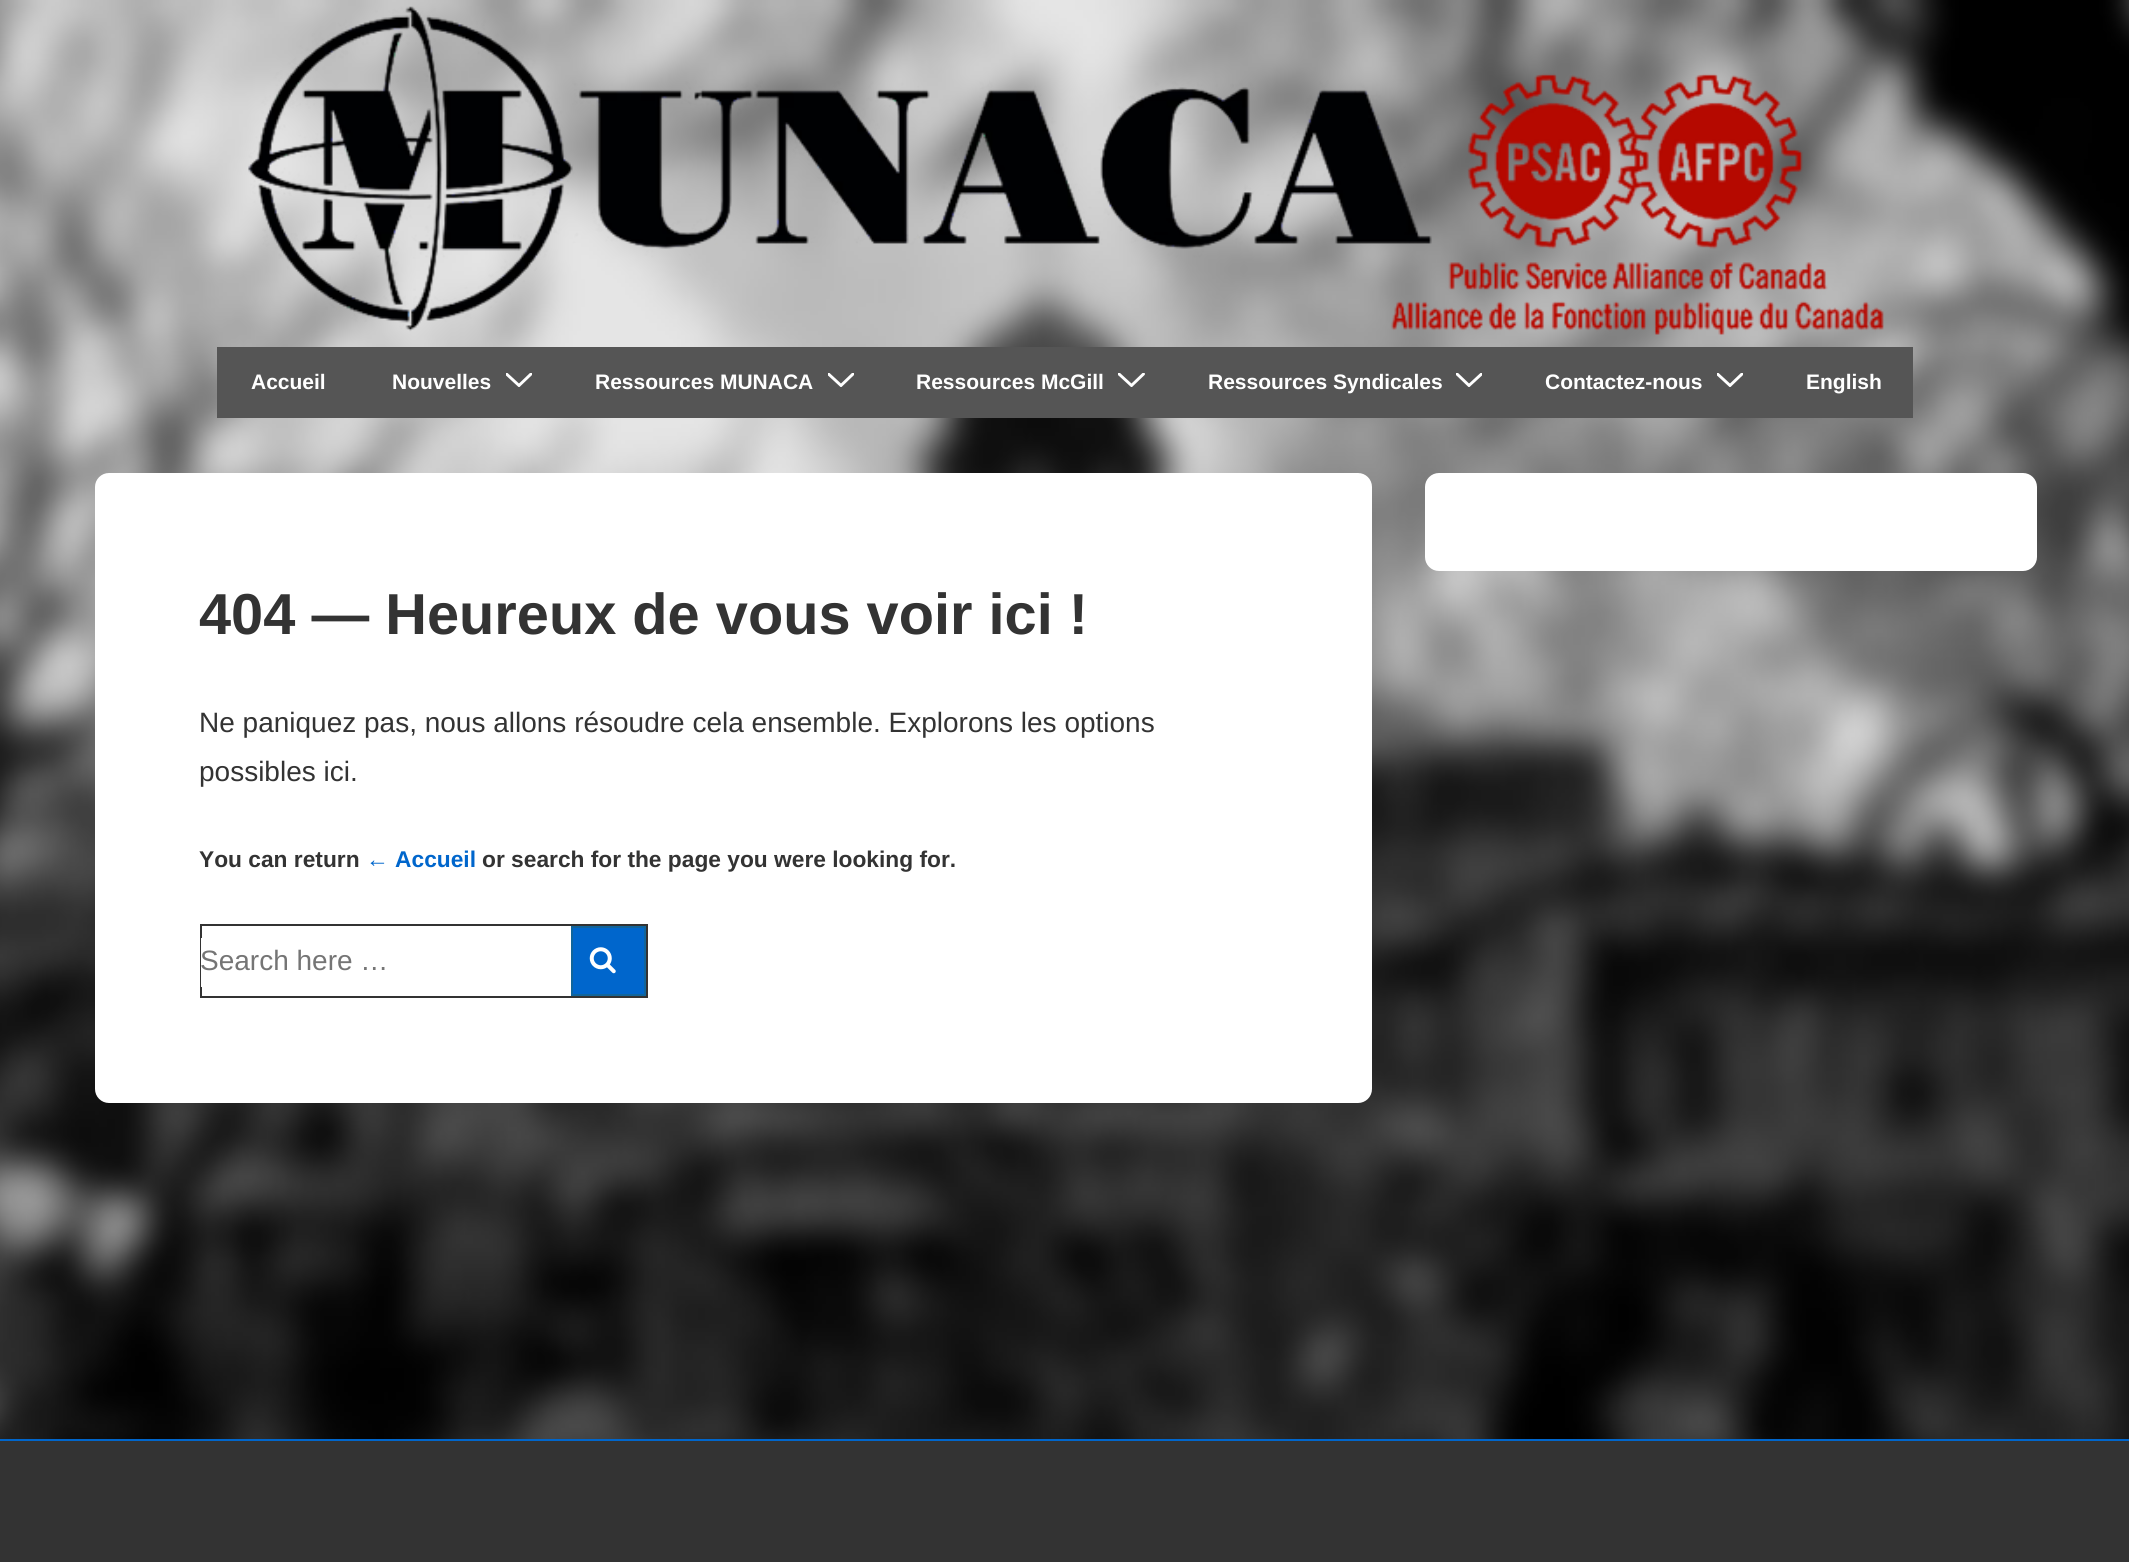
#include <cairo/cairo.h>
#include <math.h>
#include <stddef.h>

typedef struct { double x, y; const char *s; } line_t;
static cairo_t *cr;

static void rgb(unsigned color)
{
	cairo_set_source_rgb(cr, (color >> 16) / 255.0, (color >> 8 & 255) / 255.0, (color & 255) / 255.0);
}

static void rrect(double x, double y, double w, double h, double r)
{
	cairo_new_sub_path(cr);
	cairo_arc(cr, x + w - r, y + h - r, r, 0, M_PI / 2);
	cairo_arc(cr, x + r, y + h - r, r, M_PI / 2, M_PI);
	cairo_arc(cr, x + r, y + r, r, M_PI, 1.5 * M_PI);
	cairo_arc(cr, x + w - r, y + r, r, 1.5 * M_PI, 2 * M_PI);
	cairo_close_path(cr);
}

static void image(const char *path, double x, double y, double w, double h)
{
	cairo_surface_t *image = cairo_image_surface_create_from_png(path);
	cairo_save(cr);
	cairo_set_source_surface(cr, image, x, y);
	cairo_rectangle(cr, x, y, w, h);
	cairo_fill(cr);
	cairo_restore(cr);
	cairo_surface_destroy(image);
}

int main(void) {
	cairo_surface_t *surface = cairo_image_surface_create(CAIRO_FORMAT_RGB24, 2129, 1562);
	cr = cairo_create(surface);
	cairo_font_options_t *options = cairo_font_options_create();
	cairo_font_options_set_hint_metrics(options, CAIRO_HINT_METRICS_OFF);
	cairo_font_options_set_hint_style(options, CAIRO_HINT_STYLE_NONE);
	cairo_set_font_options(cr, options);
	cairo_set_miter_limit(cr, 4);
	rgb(0xffffff);
	cairo_paint(cr);
	image("img/1.png", 0, 0, 2129, 1439);
	image("img/2.png", 248, 6, 1636, 329);
	rgb(0x555555);
	cairo_rectangle(cr, 217, 347, 1696, 71);
	cairo_fill(cr);
	cairo_save(cr);
	cairo_rectangle(cr, 506, 373, 26, 14);
	cairo_clip(cr);
	cairo_new_path(cr);
	cairo_move_to(cr, 506.5, 374);
	cairo_line_to(cr, 519, 385.5);
	cairo_line_to(cr, 531, 374);
	rgb(0xffffff);
	cairo_set_line_width(cr, 2.9);
	cairo_set_line_cap(cr, CAIRO_LINE_CAP_ROUND);
	cairo_stroke(cr);
	cairo_restore(cr);
	cairo_save(cr);
	cairo_rectangle(cr, 828, 373, 26, 14);
	cairo_clip(cr);
	cairo_new_path(cr);
	cairo_move_to(cr, 828.5, 374);
	cairo_line_to(cr, 841, 385.5);
	cairo_line_to(cr, 853, 374);
	rgb(0xffffff);
	cairo_set_line_width(cr, 2.9);
	cairo_set_line_cap(cr, CAIRO_LINE_CAP_ROUND);
	cairo_stroke(cr);
	cairo_restore(cr);
	cairo_save(cr);
	cairo_rectangle(cr, 1118, 373, 27, 14);
	cairo_clip(cr);
	cairo_new_path(cr);
	cairo_move_to(cr, 1119, 374);
	cairo_line_to(cr, 1131.5, 385.5);
	cairo_line_to(cr, 1143.5, 374);
	rgb(0xffffff);
	cairo_set_line_width(cr, 2.9);
	cairo_set_line_cap(cr, CAIRO_LINE_CAP_ROUND);
	cairo_stroke(cr);
	cairo_restore(cr);
	cairo_save(cr);
	cairo_rectangle(cr, 1456, 373, 26, 14);
	cairo_clip(cr);
	cairo_new_path(cr);
	cairo_move_to(cr, 1457, 374);
	cairo_line_to(cr, 1469, 385.5);
	cairo_line_to(cr, 1481.5, 374);
	rgb(0xffffff);
	cairo_set_line_width(cr, 2.9);
	cairo_set_line_cap(cr, CAIRO_LINE_CAP_ROUND);
	cairo_stroke(cr);
	cairo_restore(cr);
	cairo_save(cr);
	cairo_rectangle(cr, 1717, 373, 26, 14);
	cairo_clip(cr);
	cairo_new_path(cr);
	cairo_move_to(cr, 1717.5, 374);
	cairo_line_to(cr, 1730, 385.5);
	cairo_line_to(cr, 1742, 374);
	rgb(0xffffff);
	cairo_set_line_width(cr, 2.9);
	cairo_set_line_cap(cr, CAIRO_LINE_CAP_ROUND);
	cairo_stroke(cr);
	cairo_restore(cr);
	rgb(0xffffff);
	rrect(1425, 473, 612, 98, 14);
	cairo_fill(cr);
	rrect(95, 473, 1277, 630, 14);
	cairo_fill(cr);
	cairo_rectangle(cr, 201, 925, 446, 72);
	rgb(0x333333);
	cairo_stroke(cr);
	rgb(0xffffff);
	cairo_rectangle(cr, 201, 938, 1, 49);
	cairo_fill(cr);
	rgb(0x0066cc);
	cairo_rectangle(cr, 572, 927, 73, 68);
	cairo_fill_preserve(cr);
	rgb(0x10659c);
	cairo_stroke(cr);
	image("img/3.png", 589, 947, 27, 27);
	rgb(0x333333);
	cairo_rectangle(cr, 0, 1441, 2129, 121);
	cairo_fill(cr);
	rgb(0x0066cc);
	cairo_rectangle(cr, 0, 1439, 2129, 2);
	cairo_fill(cr);
	cairo_select_font_face(cr, "Liberation Sans", CAIRO_FONT_SLANT_NORMAL, CAIRO_FONT_WEIGHT_BOLD);
	cairo_set_font_size(cr, 21);
	rgb(0xffffff);
	{
		static const line_t items[] = {
			{251, 389, "Accueil"},
			{392, 389, "Nouvelles"},
			{595, 389, "Ressources MUNACA"},
			{916, 389, "Ressources McGill"},
			{1208, 389, "Ressources Syndicales"},
			{1545, 389, "Contactez-nous"},
			{1806, 389, "English"},
		};
		for (size_t i = 0; i < sizeof items / sizeof *items; i++) {
			cairo_move_to(cr, items[i].x, items[i].y);
			cairo_show_text(cr, items[i].s);
		}
	}
	cairo_set_font_size(cr, 57.75);
	rgb(0x333333);
	cairo_move_to(cr, 199, 634);
	cairo_show_text(cr, "404 — Heureux de vous voir ici !");
	cairo_select_font_face(cr, "Liberation Sans", CAIRO_FONT_SLANT_NORMAL, CAIRO_FONT_WEIGHT_NORMAL);
	cairo_set_font_size(cr, 28);
	cairo_move_to(cr, 199, 732);
	cairo_show_text(cr, "Ne paniquez pas, nous allons résoudre cela ensemble. Explorons les options");
	cairo_move_to(cr, 199, 781);
	cairo_show_text(cr, "possibles ici.");
	cairo_select_font_face(cr, "Liberation Sans", CAIRO_FONT_SLANT_NORMAL, CAIRO_FONT_WEIGHT_BOLD);
	cairo_set_font_size(cr, 22.75);
	cairo_move_to(cr, 199, 867);
	cairo_show_text(cr, "You can return");
	rgb(0x0066cc);
	cairo_move_to(cr, 366, 867);
	cairo_show_text(cr, "← Accueil");
	rgb(0x333333);
	cairo_move_to(cr, 482, 867);
	cairo_show_text(cr, "or search for the page you were looking for.");
	cairo_select_font_face(cr, "Liberation Sans", CAIRO_FONT_SLANT_NORMAL, CAIRO_FONT_WEIGHT_NORMAL);
	cairo_set_font_size(cr, 28);
	rgb(0x757575);
	cairo_move_to(cr, 200, 970);
	cairo_show_text(cr, "Search here …");
	cairo_surface_write_to_png(surface, "page.png");
	cairo_font_options_destroy(options);
	cairo_destroy(cr);
	cairo_surface_destroy(surface);
	return 0;
}
